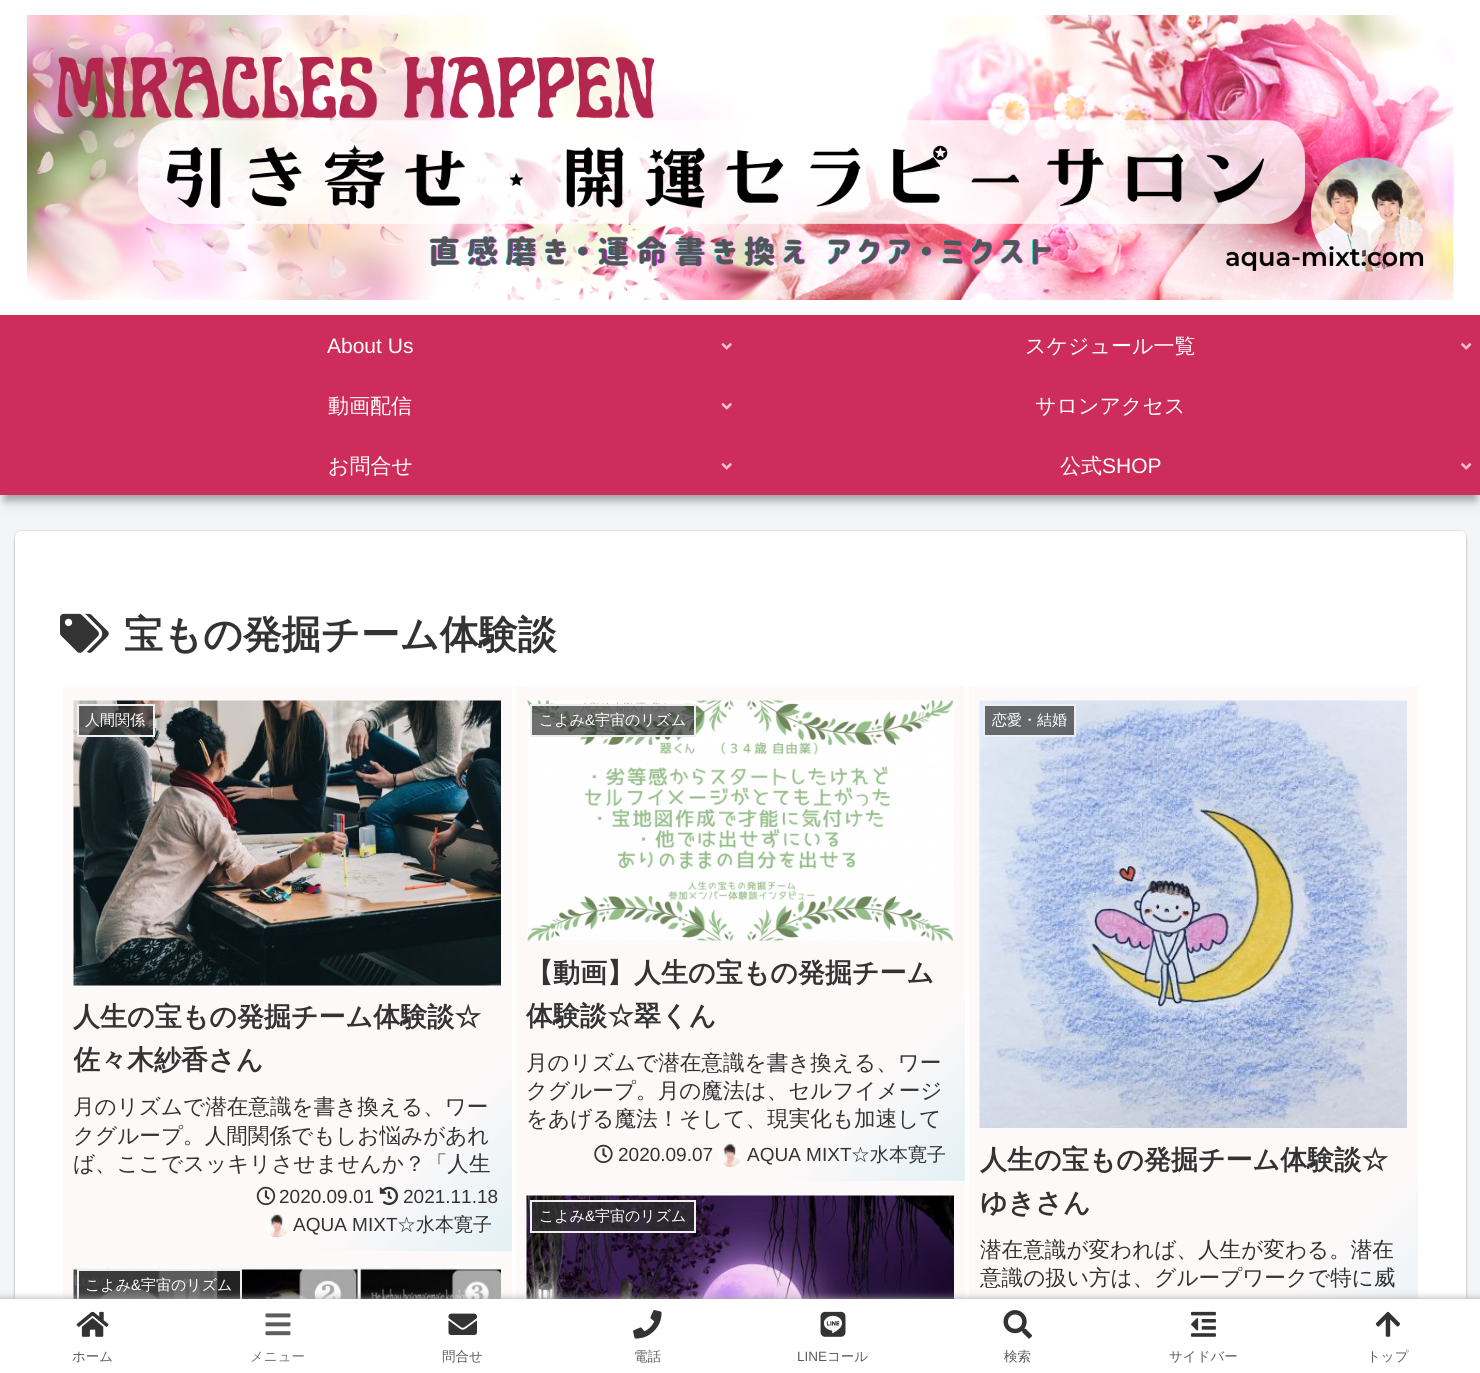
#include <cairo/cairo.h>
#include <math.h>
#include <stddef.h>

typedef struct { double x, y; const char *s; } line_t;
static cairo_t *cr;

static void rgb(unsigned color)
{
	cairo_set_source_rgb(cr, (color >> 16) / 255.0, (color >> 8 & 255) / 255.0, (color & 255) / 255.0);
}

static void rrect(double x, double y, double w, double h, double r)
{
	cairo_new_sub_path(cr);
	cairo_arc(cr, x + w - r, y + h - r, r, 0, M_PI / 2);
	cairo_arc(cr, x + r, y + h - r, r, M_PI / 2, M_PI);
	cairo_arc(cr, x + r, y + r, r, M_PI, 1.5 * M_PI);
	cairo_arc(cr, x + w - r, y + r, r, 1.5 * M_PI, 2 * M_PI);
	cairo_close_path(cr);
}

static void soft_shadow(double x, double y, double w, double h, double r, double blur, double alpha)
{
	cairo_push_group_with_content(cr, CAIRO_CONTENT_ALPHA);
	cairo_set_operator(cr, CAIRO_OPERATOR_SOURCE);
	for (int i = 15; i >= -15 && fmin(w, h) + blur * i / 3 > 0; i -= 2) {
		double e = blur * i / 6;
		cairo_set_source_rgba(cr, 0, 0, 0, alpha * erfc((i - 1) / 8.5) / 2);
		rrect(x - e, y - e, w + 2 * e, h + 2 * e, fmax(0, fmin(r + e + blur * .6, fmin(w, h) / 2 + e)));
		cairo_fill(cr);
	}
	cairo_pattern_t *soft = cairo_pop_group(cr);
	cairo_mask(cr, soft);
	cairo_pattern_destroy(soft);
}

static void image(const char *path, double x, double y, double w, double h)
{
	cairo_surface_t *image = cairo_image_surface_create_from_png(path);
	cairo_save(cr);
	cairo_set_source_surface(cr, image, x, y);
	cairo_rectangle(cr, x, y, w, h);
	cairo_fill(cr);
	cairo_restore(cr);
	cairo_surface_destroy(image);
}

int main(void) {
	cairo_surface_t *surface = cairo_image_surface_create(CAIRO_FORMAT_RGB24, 1480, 1373);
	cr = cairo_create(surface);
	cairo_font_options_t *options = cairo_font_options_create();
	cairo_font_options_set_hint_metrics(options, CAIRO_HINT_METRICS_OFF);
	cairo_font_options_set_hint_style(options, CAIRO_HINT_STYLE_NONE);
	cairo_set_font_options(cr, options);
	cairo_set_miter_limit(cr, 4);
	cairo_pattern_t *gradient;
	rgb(0xf4f5f7);
	cairo_paint(cr);
	rgb(0x000000);
	soft_shadow(5, 14, 1471, 486, 0, 7.5, 0.18);
	soft_shadow(5, 14, 1471, 486, 0, 4, 0.24);
	rgb(0xffffff);
	cairo_rectangle(cr, 0, 0, 1480, 315);
	cairo_fill(cr);
	image("img/1.png", 27, 15, 1427, 285);
	rgb(0xce2c5a);
	cairo_rectangle(cr, 0, 315, 1480, 180);
	cairo_fill(cr);
	image("img/2.png", 721, 343, 11, 7);
	image("img/3.png", 1461, 343, 11, 7);
	image("img/2.png", 721, 403, 11, 7);
	image("img/2.png", 721, 463, 11, 7);
	image("img/3.png", 1461, 463, 11, 7);
	rrect(15, 531, 1451, 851, 7);
	rgb(0xe0e1e3);
	cairo_stroke(cr);
	rgb(0x000000);
	soft_shadow(15, 534, 1451, 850, 6, 1.5, 0.16);
	rgb(0xffffff);
	rrect(15, 531, 1451, 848, 6);
	cairo_fill(cr);
	image("img/4.png", 60, 613, 49, 40);
	gradient = cairo_pattern_create_linear(34, 715, 541, 1222);
	cairo_pattern_add_color_stop_rgba(gradient, 0, 0.992, 0.976, 0.976, 1);
	cairo_pattern_add_color_stop_rgba(gradient, 0.8, 0.992, 0.976, 0.976, 1);
	cairo_pattern_add_color_stop_rgba(gradient, 1, 0.886, 0.941, 0.961, 1);
	cairo_set_source(cr, gradient);
	cairo_pattern_destroy(gradient);
	cairo_rectangle(cr, 63, 686, 449, 565);
	cairo_fill(cr);
	image("img/5.png", 73, 700, 428, 286);
	cairo_set_source_rgba(cr, 0.2, 0.2, 0.2, 0.7);
	cairo_rectangle(cr, 78, 705, 76, 31);
	cairo_fill_preserve(cr);
	rgb(0xeeeeee);
	cairo_stroke(cr);
	image("img/6.png", 256, 1186, 20, 20);
	image("img/7.png", 379, 1186, 20, 20);
	image("img/8.png", 266, 1213, 22, 25);
	gradient = cairo_pattern_create_linear(504, 697, 976, 1169);
	cairo_pattern_add_color_stop_rgba(gradient, 0, 0.992, 0.976, 0.976, 1);
	cairo_pattern_add_color_stop_rgba(gradient, 0.8, 0.992, 0.976, 0.976, 1);
	cairo_pattern_add_color_stop_rgba(gradient, 1, 0.886, 0.941, 0.961, 1);
	cairo_set_source(cr, gradient);
	cairo_pattern_destroy(gradient);
	cairo_rectangle(cr, 516, 686, 449, 495);
	cairo_fill(cr);
	image("img/9.png", 527, 700, 427, 241);
	cairo_set_source_rgba(cr, 0.2, 0.2, 0.2, 0.7);
	cairo_rectangle(cr, 531, 705, 164, 31);
	cairo_fill_preserve(cr);
	rgb(0xeeeeee);
	cairo_stroke(cr);
	image("img/10.png", 594, 1144, 19, 20);
	image("img/11.png", 719, 1143, 22, 24);
	gradient = cairo_pattern_create_linear(904, 750, 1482, 1329);
	cairo_pattern_add_color_stop_rgba(gradient, 0, 0.992, 0.976, 0.976, 1);
	cairo_pattern_add_color_stop_rgba(gradient, 0.8, 0.992, 0.976, 0.976, 1);
	cairo_pattern_add_color_stop_rgba(gradient, 1, 0.886, 0.941, 0.961, 1);
	cairo_set_source(cr, gradient);
	cairo_pattern_destroy(gradient);
	cairo_rectangle(cr, 969, 686, 449, 613);
	cairo_fill(cr);
	image("img/12.png", 979, 700, 428, 428);
	cairo_set_source_rgba(cr, 0.2, 0.2, 0.2, 0.7);
	cairo_rectangle(cr, 984, 705, 91, 31);
	cairo_fill_preserve(cr);
	rgb(0xeeeeee);
	cairo_stroke(cr);
	rgb(0xfdf9f9);
	cairo_rectangle(cr, 516, 1181, 449, 118);
	cairo_fill(cr);
	image("img/13.png", 526, 1195, 428, 104);
	cairo_set_source_rgba(cr, 0.2, 0.2, 0.2, 0.7);
	cairo_rectangle(cr, 531, 1201, 164, 31);
	cairo_fill_preserve(cr);
	rgb(0xeeeeee);
	cairo_stroke(cr);
	rgb(0xfdf9f9);
	cairo_rectangle(cr, 63, 1251, 449, 48);
	cairo_fill(cr);
	image("img/14.png", 73, 1266, 428, 33);
	cairo_set_source_rgba(cr, 0.2, 0.2, 0.2, 0.7);
	cairo_rectangle(cr, 79, 1271, 161, 28);
	cairo_fill(cr);
	cairo_rectangle(cr, 78, 1270, 163, 31);
	rgb(0xeeeeee);
	cairo_stroke(cr);
	rgb(0xa9a9a9);
	soft_shadow(0, 1299, 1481, 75, 0, 4, 1);
	rgb(0xffffff);
	cairo_rectangle(cr, 0, 1299, 1480, 74);
	cairo_fill(cr);
	image("img/15.png", 76, 1311, 33, 26);
	image("img/16.png", 265, 1313, 26, 23);
	image("img/17.png", 448, 1313, 29, 22);
	image("img/18.png", 633, 1310, 29, 29);
	image("img/19.png", 820, 1311, 26, 26);
	image("img/20.png", 1003, 1310, 29, 29);
	image("img/21.png", 1191, 1311, 25, 26);
	image("img/22.png", 1375, 1311, 26, 26);
	cairo_select_font_face(cr, "Liberation Sans", CAIRO_FONT_SLANT_NORMAL, CAIRO_FONT_WEIGHT_NORMAL);
	cairo_set_font_size(cr, 21);
	cairo_move_to(cr, 327, 353);
	cairo_show_text(cr, "About Us");
	cairo_select_font_face(cr, "WenQuanYi Zen Hei Medium", CAIRO_FONT_SLANT_NORMAL, CAIRO_FONT_WEIGHT_NORMAL);
	{
		static const line_t items[] = {
			{1025, 353, "スケジュール一覧"},
			{328, 413, "動画配信"},
			{1035, 413, "サロンアクセス"},
			{328, 473, "お問合せ"},
			{1060, 473, "公式"},
		};
		for (size_t i = 0; i < sizeof items / sizeof *items; i++) {
			cairo_move_to(cr, items[i].x, items[i].y);
			cairo_show_text(cr, items[i].s);
		}
	}
	cairo_select_font_face(cr, "Liberation Sans", CAIRO_FONT_SLANT_NORMAL, CAIRO_FONT_WEIGHT_NORMAL);
	cairo_move_to(cr, 1102, 473);
	cairo_show_text(cr, "SHOP");
	cairo_select_font_face(cr, "WenQuanYi Zen Hei", CAIRO_FONT_SLANT_NORMAL, CAIRO_FONT_WEIGHT_BOLD);
	cairo_set_font_size(cr, 39);
	rgb(0x333333);
	cairo_move_to(cr, 124, 648);
	cairo_show_text(cr, "宝もの発掘チーム体験談");
	cairo_select_font_face(cr, "WenQuanYi Zen Hei Medium", CAIRO_FONT_SLANT_NORMAL, CAIRO_FONT_WEIGHT_NORMAL);
	cairo_set_font_size(cr, 15);
	rgb(0xffffff);
	cairo_move_to(cr, 85, 725);
	cairo_show_text(cr, "人間関係");
	cairo_select_font_face(cr, "WenQuanYi Zen Hei", CAIRO_FONT_SLANT_NORMAL, CAIRO_FONT_WEIGHT_BOLD);
	cairo_set_font_size(cr, 27);
	rgb(0x333333);
	cairo_move_to(cr, 73, 1026);
	cairo_show_text(cr, "人生の宝もの発掘チーム体験談☆");
	cairo_save(cr);
	cairo_rectangle(cr, 74, 996, 427, 87);
	cairo_clip(cr);
	cairo_move_to(cr, 73, 1069);
	cairo_show_text(cr, "佐々木紗香さん");
	cairo_restore(cr);
	cairo_select_font_face(cr, "WenQuanYi Zen Hei Medium", CAIRO_FONT_SLANT_NORMAL, CAIRO_FONT_WEIGHT_NORMAL);
	cairo_set_font_size(cr, 21.6);
	{
		static const line_t items[] = {
			{73, 1114, "月のリズムで潜在意識を書き換える、ワー"},
			{73, 1143, "クグループ。人間関係でもしお悩みがあれ"},
			{73, 1171, "ば、ここでスッキリさせませんか？「人生"},
		};
		for (size_t i = 0; i < sizeof items / sizeof *items; i++) {
			cairo_move_to(cr, items[i].x, items[i].y);
			cairo_show_text(cr, items[i].s);
		}
	}
	cairo_select_font_face(cr, "Liberation Sans", CAIRO_FONT_SLANT_NORMAL, CAIRO_FONT_WEIGHT_NORMAL);
	cairo_set_font_size(cr, 19);
	{
		static const line_t items[] = {
			{279, 1203, "2020.09.01"},
			{403, 1203, "2021.11.18"},
			{293, 1231, "AQUA MIXT"},
		};
		for (size_t i = 0; i < sizeof items / sizeof *items; i++) {
			cairo_move_to(cr, items[i].x, items[i].y);
			cairo_show_text(cr, items[i].s);
		}
	}
	cairo_select_font_face(cr, "WenQuanYi Zen Hei Medium", CAIRO_FONT_SLANT_NORMAL, CAIRO_FONT_WEIGHT_NORMAL);
	cairo_move_to(cr, 397, 1231);
	cairo_show_text(cr, "☆水本寛子");
	cairo_set_font_size(cr, 15);
	rgb(0xffffff);
	cairo_move_to(cr, 539, 725);
	cairo_show_text(cr, "こよみ");
	cairo_select_font_face(cr, "Liberation Sans", CAIRO_FONT_SLANT_NORMAL, CAIRO_FONT_WEIGHT_NORMAL);
	cairo_move_to(cr, 585, 725);
	cairo_show_text(cr, "&");
	cairo_select_font_face(cr, "WenQuanYi Zen Hei Medium", CAIRO_FONT_SLANT_NORMAL, CAIRO_FONT_WEIGHT_NORMAL);
	cairo_move_to(cr, 595, 725);
	cairo_show_text(cr, "宇宙のリズム");
	cairo_select_font_face(cr, "WenQuanYi Zen Hei", CAIRO_FONT_SLANT_NORMAL, CAIRO_FONT_WEIGHT_BOLD);
	cairo_set_font_size(cr, 27);
	rgb(0x333333);
	cairo_move_to(cr, 526, 982);
	cairo_show_text(cr, "【動画】人生の宝もの発掘チーム");
	cairo_move_to(cr, 526, 1025);
	cairo_show_text(cr, "体験談☆翠くん");
	cairo_select_font_face(cr, "WenQuanYi Zen Hei Medium", CAIRO_FONT_SLANT_NORMAL, CAIRO_FONT_WEIGHT_NORMAL);
	cairo_set_font_size(cr, 21.6);
	{
		static const line_t items[] = {
			{526, 1070, "月のリズムで潜在意識を書き換える、ワー"},
			{526, 1098, "クグループ。月の魔法は、セルフイメージ"},
			{526, 1126, "をあげる魔法！そして、現実化も加速して"},
		};
		for (size_t i = 0; i < sizeof items / sizeof *items; i++) {
			cairo_move_to(cr, items[i].x, items[i].y);
			cairo_show_text(cr, items[i].s);
		}
	}
	cairo_select_font_face(cr, "Liberation Sans", CAIRO_FONT_SLANT_NORMAL, CAIRO_FONT_WEIGHT_NORMAL);
	cairo_set_font_size(cr, 19);
	cairo_move_to(cr, 618, 1161);
	cairo_show_text(cr, "2020.09.07");
	cairo_move_to(cr, 747, 1161);
	cairo_show_text(cr, "AQUA MIXT");
	cairo_select_font_face(cr, "WenQuanYi Zen Hei Medium", CAIRO_FONT_SLANT_NORMAL, CAIRO_FONT_WEIGHT_NORMAL);
	cairo_move_to(cr, 851, 1161);
	cairo_show_text(cr, "☆水本寛子");
	cairo_set_font_size(cr, 15);
	rgb(0xffffff);
	cairo_move_to(cr, 992, 725);
	cairo_show_text(cr, "恋愛・結婚");
	cairo_select_font_face(cr, "WenQuanYi Zen Hei", CAIRO_FONT_SLANT_NORMAL, CAIRO_FONT_WEIGHT_BOLD);
	cairo_set_font_size(cr, 27);
	rgb(0x333333);
	cairo_move_to(cr, 980, 1169);
	cairo_show_text(cr, "人生の宝もの発掘チーム体験談☆");
	cairo_move_to(cr, 980, 1212);
	cairo_show_text(cr, "ゆきさん");
	cairo_select_font_face(cr, "WenQuanYi Zen Hei Medium", CAIRO_FONT_SLANT_NORMAL, CAIRO_FONT_WEIGHT_NORMAL);
	cairo_set_font_size(cr, 21.6);
	cairo_move_to(cr, 980, 1257);
	cairo_show_text(cr, "潜在意識が変われば、人生が変わる。潜在");
	cairo_move_to(cr, 980, 1285);
	cairo_show_text(cr, "意識の扱い方は、グループワークで特に威");
	cairo_set_font_size(cr, 15);
	rgb(0xffffff);
	cairo_move_to(cr, 539, 1221);
	cairo_show_text(cr, "こよみ");
	cairo_select_font_face(cr, "Liberation Sans", CAIRO_FONT_SLANT_NORMAL, CAIRO_FONT_WEIGHT_NORMAL);
	cairo_move_to(cr, 585, 1221);
	cairo_show_text(cr, "&");
	cairo_select_font_face(cr, "WenQuanYi Zen Hei Medium", CAIRO_FONT_SLANT_NORMAL, CAIRO_FONT_WEIGHT_NORMAL);
	cairo_move_to(cr, 595, 1221);
	cairo_show_text(cr, "宇宙のリズム");
	cairo_move_to(cr, 85, 1290);
	cairo_show_text(cr, "こよみ");
	cairo_select_font_face(cr, "Liberation Sans", CAIRO_FONT_SLANT_NORMAL, CAIRO_FONT_WEIGHT_NORMAL);
	cairo_move_to(cr, 131, 1290);
	cairo_show_text(cr, "&");
	cairo_select_font_face(cr, "WenQuanYi Zen Hei Medium", CAIRO_FONT_SLANT_NORMAL, CAIRO_FONT_WEIGHT_NORMAL);
	cairo_move_to(cr, 141, 1290);
	cairo_show_text(cr, "宇宙のリズム");
	cairo_set_font_size(cr, 13.5);
	rgb(0x5c5c5c);
	cairo_move_to(cr, 72, 1361);
	cairo_show_text(cr, "ホーム");
	rgb(0x7c7c7c);
	cairo_move_to(cr, 250, 1361);
	cairo_show_text(cr, "メニュー");
	rgb(0x5c5c5c);
	cairo_move_to(cr, 442, 1361);
	cairo_show_text(cr, "問合せ");
	cairo_move_to(cr, 634, 1361);
	cairo_show_text(cr, "電話");
	cairo_select_font_face(cr, "Liberation Sans", CAIRO_FONT_SLANT_NORMAL, CAIRO_FONT_WEIGHT_NORMAL);
	cairo_move_to(cr, 797, 1361);
	cairo_show_text(cr, "LINE");
	cairo_select_font_face(cr, "WenQuanYi Zen Hei Medium", CAIRO_FONT_SLANT_NORMAL, CAIRO_FONT_WEIGHT_NORMAL);
	{
		static const line_t items[] = {
			{827, 1361, "コール"},
			{1004, 1361, "検索"},
			{1169, 1361, "サイドバー"},
			{1367, 1361, "トップ"},
		};
		for (size_t i = 0; i < sizeof items / sizeof *items; i++) {
			cairo_move_to(cr, items[i].x, items[i].y);
			cairo_show_text(cr, items[i].s);
		}
	}
	cairo_surface_write_to_png(surface, "page.png");
	cairo_font_options_destroy(options);
	cairo_destroy(cr);
	cairo_surface_destroy(surface);
	return 0;
}
